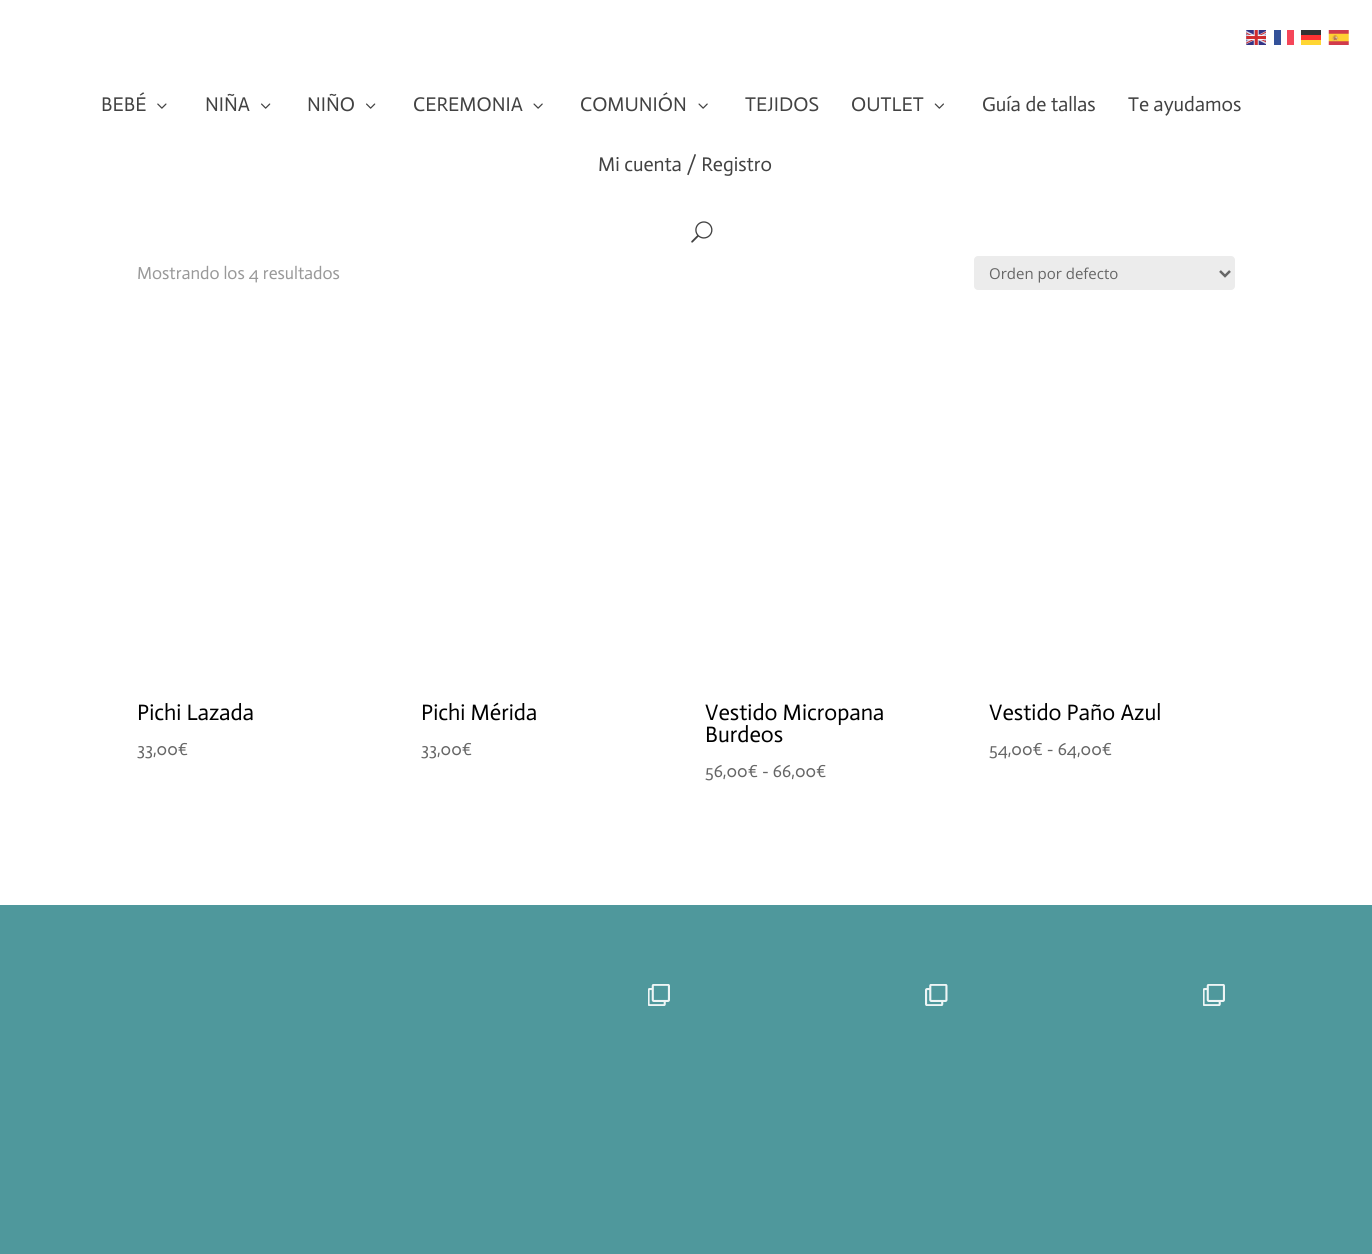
#include <cairo/cairo.h>
#include <math.h>
#include <stddef.h>

typedef struct { double x, y; const char *s; } line_t;
typedef struct { double x, y, w, h; unsigned color; } box_t;
static cairo_t *cr;

static void rgb(unsigned color)
{
	cairo_set_source_rgb(cr, (color >> 16) / 255.0, (color >> 8 & 255) / 255.0, (color & 255) / 255.0);
}

static void rrect(double x, double y, double w, double h, double r)
{
	cairo_new_sub_path(cr);
	cairo_arc(cr, x + w - r, y + h - r, r, 0, M_PI / 2);
	cairo_arc(cr, x + r, y + h - r, r, M_PI / 2, M_PI);
	cairo_arc(cr, x + r, y + r, r, M_PI, 1.5 * M_PI);
	cairo_arc(cr, x + w - r, y + r, r, 1.5 * M_PI, 2 * M_PI);
	cairo_close_path(cr);
}

static void image(const char *path, double x, double y, double w, double h)
{
	cairo_surface_t *image = cairo_image_surface_create_from_png(path);
	cairo_save(cr);
	cairo_set_source_surface(cr, image, x, y);
	cairo_rectangle(cr, x, y, w, h);
	cairo_fill(cr);
	cairo_restore(cr);
	cairo_surface_destroy(image);
}

int main(void) {
	cairo_surface_t *surface = cairo_image_surface_create(CAIRO_FORMAT_RGB24, 1372, 1254);
	cr = cairo_create(surface);
	cairo_font_options_t *options = cairo_font_options_create();
	cairo_font_options_set_hint_metrics(options, CAIRO_HINT_METRICS_OFF);
	cairo_font_options_set_hint_style(options, CAIRO_HINT_STYLE_NONE);
	cairo_set_font_options(cr, options);
	cairo_set_miter_limit(cr, 4);
	rgb(0xffffff);
	cairo_paint(cr);
	image("img/1.png", 1246, 30, 20, 15);
	{
		static const box_t items[] = {
			{1274, 30, 7, 15, 0x335199},
			{1287, 30, 7, 15, 0xf54659},
			{1301, 30, 20, 5, 0x333333},
		};
		for (size_t i = 0; i < sizeof items / sizeof *items; i++) {
			rgb(items[i].color);
			cairo_rectangle(cr, items[i].x, items[i].y, items[i].w, items[i].h);
			cairo_fill(cr);
		}
	}
	image("img/2.png", 1328, 30, 21, 15);
	rgb(0xff3333);
	cairo_rectangle(cr, 1301, 35, 20, 5);
	cairo_fill(cr);
	rgb(0xffd633);
	cairo_rectangle(cr, 1301, 40, 20, 5);
	cairo_fill(cr);
	image("img/3.png", 157, 103, 10, 6);
	image("img/4.png", 261, 103, 10, 6);
	image("img/4.png", 366, 103, 10, 6);
	image("img/5.png", 533, 103, 10, 6);
	image("img/5.png", 698, 103, 10, 6);
	image("img/6.png", 934, 103, 10, 6);
	image("img/7.png", 691, 221, 22, 22);
	rgb(0xececec);
	rrect(974, 256, 261, 34, 4);
	cairo_fill(cr);
	cairo_new_path(cr);
	cairo_move_to(cr, 1220, 271);
	cairo_line_to(cr, 1225, 276);
	cairo_line_to(cr, 1230, 271);
	rgb(0x666666);
	cairo_set_line_width(cr, 2.5);
	cairo_stroke(cr);
	rgb(0x4f989c);
	cairo_rectangle(cr, 0, 905, 1372, 349);
	cairo_fill(cr);
	image("img/8.png", 648, 984, 22, 22);
	image("img/9.png", 925, 984, 23, 22);
	image("img/8.png", 1203, 984, 22, 22);
	cairo_select_font_face(cr, "Actor", CAIRO_FONT_SLANT_NORMAL, CAIRO_FONT_WEIGHT_NORMAL);
	cairo_set_font_size(cr, 20);
	rgb(0x424242);
	{
		static const line_t items[] = {
			{101, 111, "BEBÉ"},
			{205, 111, "NIÑA"},
			{307, 111, "NIÑO"},
			{413, 111, "CEREMONIA"},
			{580, 111, "COMUNIÓN"},
			{745, 111, "TEJIDOS"},
			{851, 111, "OUTLET"},
			{982, 111, "Guía de tallas"},
			{1128, 111, "Te ayudamos"},
			{598, 171, "Mi cuenta / Registro"},
		};
		for (size_t i = 0; i < sizeof items / sizeof *items; i++) {
			cairo_move_to(cr, items[i].x, items[i].y);
			cairo_show_text(cr, items[i].s);
		}
	}
	cairo_set_font_size(cr, 17.5);
	rgb(0x999999);
	cairo_move_to(cr, 137, 279);
	cairo_show_text(cr, "Mostrando los 4 resultados");
	cairo_select_font_face(cr, "Open Sans", CAIRO_FONT_SLANT_NORMAL, CAIRO_FONT_WEIGHT_NORMAL);
	cairo_set_font_size(cr, 15);
	rgb(0x666666);
	cairo_move_to(cr, 989, 279);
	cairo_show_text(cr, "Orden por defecto");
	cairo_select_font_face(cr, "Actor", CAIRO_FONT_SLANT_NORMAL, CAIRO_FONT_WEIGHT_NORMAL);
	cairo_set_font_size(cr, 22.5);
	rgb(0x000000);
	cairo_move_to(cr, 137, 720);
	cairo_show_text(cr, "Pichi Lazada");
	cairo_set_font_size(cr, 17.5);
	rgb(0x666666);
	cairo_move_to(cr, 137, 755);
	cairo_show_text(cr, "33,00€");
	cairo_set_font_size(cr, 22.5);
	rgb(0x000000);
	cairo_move_to(cr, 421, 720);
	cairo_show_text(cr, "Pichi Mérida");
	cairo_set_font_size(cr, 17.5);
	rgb(0x666666);
	cairo_move_to(cr, 421, 755);
	cairo_show_text(cr, "33,00€");
	cairo_set_font_size(cr, 22.5);
	rgb(0x000000);
	cairo_move_to(cr, 705, 720);
	cairo_show_text(cr, "Vestido Micropana");
	cairo_move_to(cr, 705, 742);
	cairo_show_text(cr, "Burdeos");
	cairo_set_font_size(cr, 17.5);
	rgb(0x666666);
	cairo_move_to(cr, 705, 777);
	cairo_show_text(cr, "56,00€ - 66,00€");
	cairo_set_font_size(cr, 22.5);
	rgb(0x000000);
	cairo_move_to(cr, 989, 720);
	cairo_show_text(cr, "Vestido Paño Azul");
	cairo_set_font_size(cr, 17.5);
	rgb(0x666666);
	cairo_move_to(cr, 989, 755);
	cairo_show_text(cr, "54,00€ - 64,00€");
	cairo_surface_write_to_png(surface, "page.png");
	cairo_font_options_destroy(options);
	cairo_destroy(cr);
	cairo_surface_destroy(surface);
	return 0;
}
